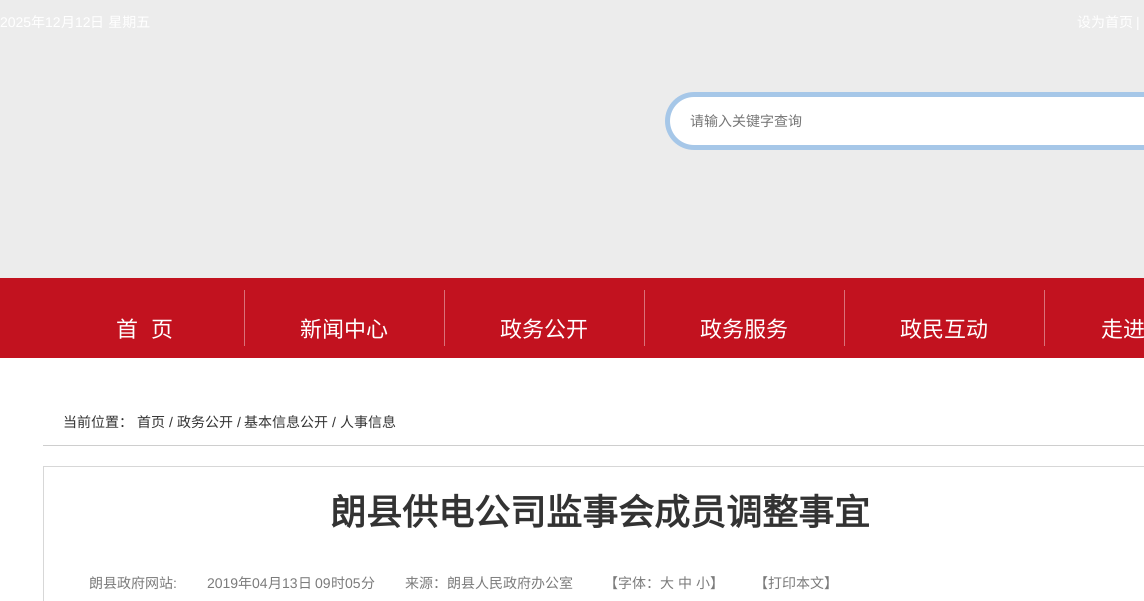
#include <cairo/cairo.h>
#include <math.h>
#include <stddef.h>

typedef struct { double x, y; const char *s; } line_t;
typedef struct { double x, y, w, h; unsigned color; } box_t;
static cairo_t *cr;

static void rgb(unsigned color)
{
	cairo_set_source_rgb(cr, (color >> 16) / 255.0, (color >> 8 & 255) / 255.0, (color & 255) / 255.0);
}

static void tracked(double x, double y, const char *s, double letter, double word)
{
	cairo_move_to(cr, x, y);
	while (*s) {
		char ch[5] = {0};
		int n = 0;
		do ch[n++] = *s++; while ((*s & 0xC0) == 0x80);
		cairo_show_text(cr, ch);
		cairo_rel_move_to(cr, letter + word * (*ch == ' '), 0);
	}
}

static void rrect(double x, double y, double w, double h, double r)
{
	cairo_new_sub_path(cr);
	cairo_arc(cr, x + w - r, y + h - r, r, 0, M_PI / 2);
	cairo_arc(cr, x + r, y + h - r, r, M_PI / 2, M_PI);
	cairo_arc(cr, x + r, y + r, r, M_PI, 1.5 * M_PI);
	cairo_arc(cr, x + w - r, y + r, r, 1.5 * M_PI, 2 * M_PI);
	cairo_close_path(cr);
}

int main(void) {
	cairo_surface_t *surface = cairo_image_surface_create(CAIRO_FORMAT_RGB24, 1144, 601);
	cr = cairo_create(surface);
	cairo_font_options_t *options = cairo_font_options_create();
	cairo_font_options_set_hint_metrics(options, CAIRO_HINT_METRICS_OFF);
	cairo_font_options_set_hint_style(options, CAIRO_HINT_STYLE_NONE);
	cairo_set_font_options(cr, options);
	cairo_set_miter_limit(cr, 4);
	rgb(0xececec);
	cairo_paint(cr);
	rgb(0xffffff);
	rrect(667.5, 94.5, 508, 53, 26.5);
	cairo_fill_preserve(cr);
	rgb(0xa6c7e8);
	cairo_set_line_width(cr, 5);
	cairo_stroke(cr);
	{
		static const box_t items[] = {
			{0, 278, 1144, 80, 0xc2121f},
			{244, 290, 1, 56, 0xda7179},
			{444, 290, 1, 56, 0xda7179},
			{644, 290, 1, 56, 0xda7179},
			{844, 290, 1, 56, 0xda7179},
			{1044, 290, 1, 56, 0xda7179},
			{0, 358, 1144, 243, 0xffffff},
			{43, 445, 1101, 1, 0xcecece},
		};
		for (size_t i = 0; i < sizeof items / sizeof *items; i++) {
			rgb(items[i].color);
			cairo_rectangle(cr, items[i].x, items[i].y, items[i].w, items[i].h);
			cairo_fill(cr);
		}
	}
	cairo_rectangle(cr, 43.5, 466.5, 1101, 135);
	rgb(0xd7d7d7);
	cairo_set_line_width(cr, 1);
	cairo_stroke(cr);
	cairo_select_font_face(cr, "Liberation Sans", CAIRO_FONT_SLANT_NORMAL, CAIRO_FONT_WEIGHT_NORMAL);
	cairo_set_font_size(cr, 14);
	rgb(0xffffff);
	cairo_move_to(cr, 0, 27);
	cairo_show_text(cr, "2025");
	cairo_select_font_face(cr, "Noto Sans CJK SC", CAIRO_FONT_SLANT_NORMAL, CAIRO_FONT_WEIGHT_NORMAL);
	cairo_move_to(cr, 31, 27);
	cairo_show_text(cr, "年");
	cairo_select_font_face(cr, "Liberation Sans", CAIRO_FONT_SLANT_NORMAL, CAIRO_FONT_WEIGHT_NORMAL);
	cairo_move_to(cr, 45, 27);
	cairo_show_text(cr, "12");
	cairo_select_font_face(cr, "Noto Sans CJK SC", CAIRO_FONT_SLANT_NORMAL, CAIRO_FONT_WEIGHT_NORMAL);
	cairo_move_to(cr, 61, 27);
	cairo_show_text(cr, "月");
	cairo_select_font_face(cr, "Liberation Sans", CAIRO_FONT_SLANT_NORMAL, CAIRO_FONT_WEIGHT_NORMAL);
	cairo_move_to(cr, 75, 27);
	cairo_show_text(cr, "12");
	cairo_select_font_face(cr, "Noto Sans CJK SC", CAIRO_FONT_SLANT_NORMAL, CAIRO_FONT_WEIGHT_NORMAL);
	tracked(90, 27, "日 星期五", 0, 1);
	cairo_move_to(cr, 1077, 27);
	cairo_show_text(cr, "设为首页");
	cairo_select_font_face(cr, "Liberation Sans", CAIRO_FONT_SLANT_NORMAL, CAIRO_FONT_WEIGHT_NORMAL);
	cairo_move_to(cr, 1136, 27);
	cairo_show_text(cr, "|");
	cairo_select_font_face(cr, "Noto Sans CJK SC", CAIRO_FONT_SLANT_NORMAL, CAIRO_FONT_WEIGHT_NORMAL);
	rgb(0x757575);
	cairo_move_to(cr, 690, 126);
	cairo_show_text(cr, "请输入关键字查询");
	cairo_set_font_size(cr, 22);
	rgb(0xffffff);
	{
		static const line_t items[] = {
			{116, 337, "首"},
			{151, 337, "页"},
			{300, 337, "新闻中心"},
			{500, 337, "政务公开"},
			{700, 337, "政务服务"},
			{900, 337, "政民互动"},
			{1101, 337, "走进"},
		};
		for (size_t i = 0; i < sizeof items / sizeof *items; i++) {
			cairo_move_to(cr, items[i].x, items[i].y);
			cairo_show_text(cr, items[i].s);
		}
	}
	cairo_set_font_size(cr, 14);
	rgb(0x333333);
	cairo_move_to(cr, 63, 427);
	cairo_show_text(cr, "当前位置：");
	cairo_move_to(cr, 137, 427);
	cairo_show_text(cr, "首页");
	cairo_select_font_face(cr, "Liberation Sans", CAIRO_FONT_SLANT_NORMAL, CAIRO_FONT_WEIGHT_NORMAL);
	cairo_move_to(cr, 169, 427);
	cairo_show_text(cr, "/");
	cairo_select_font_face(cr, "Noto Sans CJK SC", CAIRO_FONT_SLANT_NORMAL, CAIRO_FONT_WEIGHT_NORMAL);
	cairo_move_to(cr, 177, 427);
	cairo_show_text(cr, "政务公开");
	cairo_select_font_face(cr, "Liberation Sans", CAIRO_FONT_SLANT_NORMAL, CAIRO_FONT_WEIGHT_NORMAL);
	cairo_move_to(cr, 237, 427);
	cairo_show_text(cr, "/");
	cairo_select_font_face(cr, "Noto Sans CJK SC", CAIRO_FONT_SLANT_NORMAL, CAIRO_FONT_WEIGHT_NORMAL);
	cairo_move_to(cr, 244, 427);
	cairo_show_text(cr, "基本信息公开");
	cairo_select_font_face(cr, "Liberation Sans", CAIRO_FONT_SLANT_NORMAL, CAIRO_FONT_WEIGHT_NORMAL);
	cairo_move_to(cr, 332, 427);
	cairo_show_text(cr, "/");
	cairo_select_font_face(cr, "Noto Sans CJK SC", CAIRO_FONT_SLANT_NORMAL, CAIRO_FONT_WEIGHT_NORMAL);
	cairo_move_to(cr, 340, 427);
	cairo_show_text(cr, "人事信息");
	cairo_select_font_face(cr, "Noto Sans CJK SC", CAIRO_FONT_SLANT_NORMAL, CAIRO_FONT_WEIGHT_BOLD);
	cairo_set_font_size(cr, 36);
	cairo_move_to(cr, 330, 525);
	cairo_show_text(cr, "朗县供电公司监事会成员调整事宜");
	cairo_select_font_face(cr, "Noto Sans CJK SC", CAIRO_FONT_SLANT_NORMAL, CAIRO_FONT_WEIGHT_NORMAL);
	cairo_set_font_size(cr, 14);
	rgb(0x7b7b7b);
	cairo_move_to(cr, 89, 588);
	cairo_show_text(cr, "朗县政府网站");
	cairo_select_font_face(cr, "Liberation Sans", CAIRO_FONT_SLANT_NORMAL, CAIRO_FONT_WEIGHT_NORMAL);
	cairo_move_to(cr, 173, 588);
	cairo_show_text(cr, ":");
	cairo_move_to(cr, 207, 588);
	cairo_show_text(cr, "2019");
	cairo_select_font_face(cr, "Noto Sans CJK SC", CAIRO_FONT_SLANT_NORMAL, CAIRO_FONT_WEIGHT_NORMAL);
	cairo_move_to(cr, 238, 588);
	cairo_show_text(cr, "年");
	cairo_select_font_face(cr, "Liberation Sans", CAIRO_FONT_SLANT_NORMAL, CAIRO_FONT_WEIGHT_NORMAL);
	cairo_move_to(cr, 252, 588);
	cairo_show_text(cr, "04");
	cairo_select_font_face(cr, "Noto Sans CJK SC", CAIRO_FONT_SLANT_NORMAL, CAIRO_FONT_WEIGHT_NORMAL);
	cairo_move_to(cr, 268, 588);
	cairo_show_text(cr, "月");
	cairo_select_font_face(cr, "Liberation Sans", CAIRO_FONT_SLANT_NORMAL, CAIRO_FONT_WEIGHT_NORMAL);
	cairo_move_to(cr, 282, 588);
	cairo_show_text(cr, "13");
	cairo_select_font_face(cr, "Noto Sans CJK SC", CAIRO_FONT_SLANT_NORMAL, CAIRO_FONT_WEIGHT_NORMAL);
	cairo_move_to(cr, 298, 588);
	cairo_show_text(cr, "日");
	cairo_select_font_face(cr, "Liberation Sans", CAIRO_FONT_SLANT_NORMAL, CAIRO_FONT_WEIGHT_NORMAL);
	cairo_move_to(cr, 315, 588);
	cairo_show_text(cr, "09");
	cairo_select_font_face(cr, "Noto Sans CJK SC", CAIRO_FONT_SLANT_NORMAL, CAIRO_FONT_WEIGHT_NORMAL);
	cairo_move_to(cr, 331, 588);
	cairo_show_text(cr, "时");
	cairo_select_font_face(cr, "Liberation Sans", CAIRO_FONT_SLANT_NORMAL, CAIRO_FONT_WEIGHT_NORMAL);
	cairo_move_to(cr, 345, 588);
	cairo_show_text(cr, "05");
	cairo_select_font_face(cr, "Noto Sans CJK SC", CAIRO_FONT_SLANT_NORMAL, CAIRO_FONT_WEIGHT_NORMAL);
	{
		static const line_t items[] = {
			{361, 588, "分"},
			{405, 588, "来源：朗县人民政府办公室"},
			{604, 588, "【字体：大"},
			{678, 588, "中"},
			{696, 588, "小】"},
			{754, 588, "【打印本文】"},
		};
		for (size_t i = 0; i < sizeof items / sizeof *items; i++) {
			cairo_move_to(cr, items[i].x, items[i].y);
			cairo_show_text(cr, items[i].s);
		}
	}
	cairo_surface_write_to_png(surface, "page.png");
	cairo_font_options_destroy(options);
	cairo_destroy(cr);
	cairo_surface_destroy(surface);
	return 0;
}
